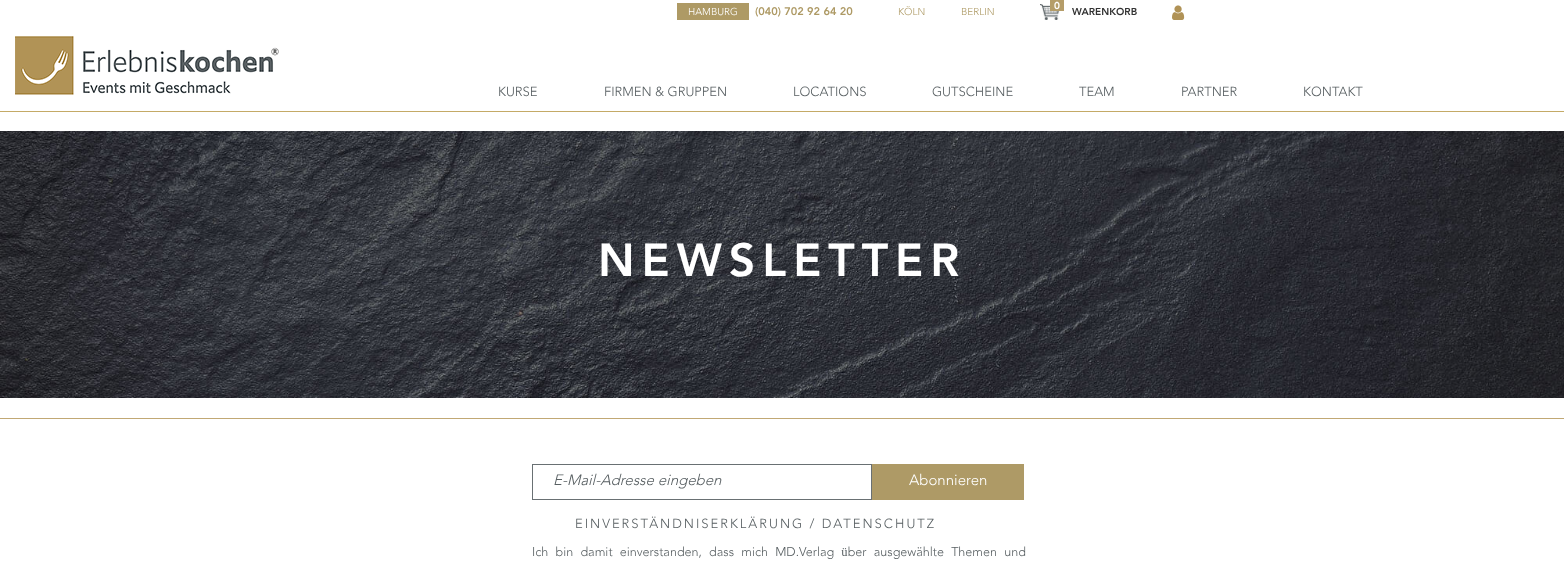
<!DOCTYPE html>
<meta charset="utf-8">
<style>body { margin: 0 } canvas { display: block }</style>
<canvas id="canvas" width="1564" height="567"></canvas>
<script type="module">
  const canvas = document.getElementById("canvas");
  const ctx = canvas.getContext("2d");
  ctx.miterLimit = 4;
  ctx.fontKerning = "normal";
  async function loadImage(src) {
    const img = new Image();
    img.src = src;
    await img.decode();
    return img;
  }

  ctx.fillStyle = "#ffffff";
  ctx.fillRect(0, 0, 1564, 567);
  ctx.fillStyle = "#ae9a65";
  ctx.fillRect(677, 3, 72, 17);
  ctx.font = "300 10px Avenir";
  ctx.fillStyle = "#ffffff";
  ctx.fillText("HAMBURG", 688, 15);
  ctx.font = "900 11px Avenir";
  ctx.fillStyle = "#ae9a65";
  ctx.fillText("(040) 702 92 64 20", 755, 15);
  ctx.font = "300 10px Avenir";
  ctx.fillText("KÖLN", 898, 15);
  ctx.fillText("BERLIN", 961, 15);
  ctx.drawImage(await loadImage("img1.png"), 1040, 4, 20, 16);
  ctx.fillStyle = "#b59d69";
  ctx.fillRect(1050, 0, 14, 11);
  ctx.font = "900 10px Avenir";
  ctx.fillStyle = "#ffffff";
  ctx.fillText("0", 1054, 9);
  ctx.fillStyle = "#333333";
  ctx.fillText("WARENKORB", 1072, 15);
  ctx.drawImage(await loadImage("img2.png"), 1172, 5, 13, 15);
  ctx.fillStyle = "#c4aa66";
  ctx.fillRect(0, 111, 1564, 1);
  ctx.drawImage(await loadImage("img3.png"), 15, 36, 264, 59);
  ctx.font = "300 13px Avenir";
  ctx.fillStyle = "#596063";
  ctx.fillText("KURSE", 498, 96);
  ctx.fillText("FIRMEN & GRUPPEN", 604, 96);
  ctx.fillText("LOCATIONS", 793, 96);
  ctx.fillText("GUTSCHEINE", 932, 96);
  ctx.fillText("TEAM", 1079, 96);
  ctx.fillText("PARTNER", 1181, 96);
  ctx.fillText("KONTAKT", 1303, 96);
  ctx.drawImage(await loadImage("img4.png"), 0, 131, 1564, 267);
  ctx.letterSpacing = "7px";
  ctx.font = "900 46px Avenir";
  ctx.fillStyle = "#ffffff";
  ctx.fillText("NEWSLETTER", 598, 276);
  ctx.fillStyle = "#c1a874";
  ctx.fillRect(0, 418, 1564, 1);
  ctx.strokeStyle = "#697073";
  ctx.strokeRect(532.5, 464.5, 339, 35);
  ctx.letterSpacing = "0px";
  ctx.font = "italic 300 15px Avenir";
  ctx.fillStyle = "#596063";
  ctx.fillText("E-Mail-Adresse eingeben", 553, 485);
  ctx.fillStyle = "#ae9a66";
  ctx.fillRect(872, 464, 152, 36);
  ctx.font = "300 15px Avenir";
  ctx.fillStyle = "#ffffff";
  ctx.fillText("Abonnieren", 909, 485);
  ctx.letterSpacing = "2px";
  ctx.font = "300 13px Avenir";
  ctx.fillStyle = "#596063";
  ctx.fillText("EINVERSTÄNDNISERKLÄRUNG / DATENSCHUTZ", 575, 528);
  ctx.letterSpacing = "0px";
  ctx.wordSpacing = "3.9px";
  ctx.font = "300 12.6px Avenir";
  ctx.fillText("Ich bin damit einverstanden, dass mich MD.Verlag über ausgewählte Themen und", 532, 556);
</script>
